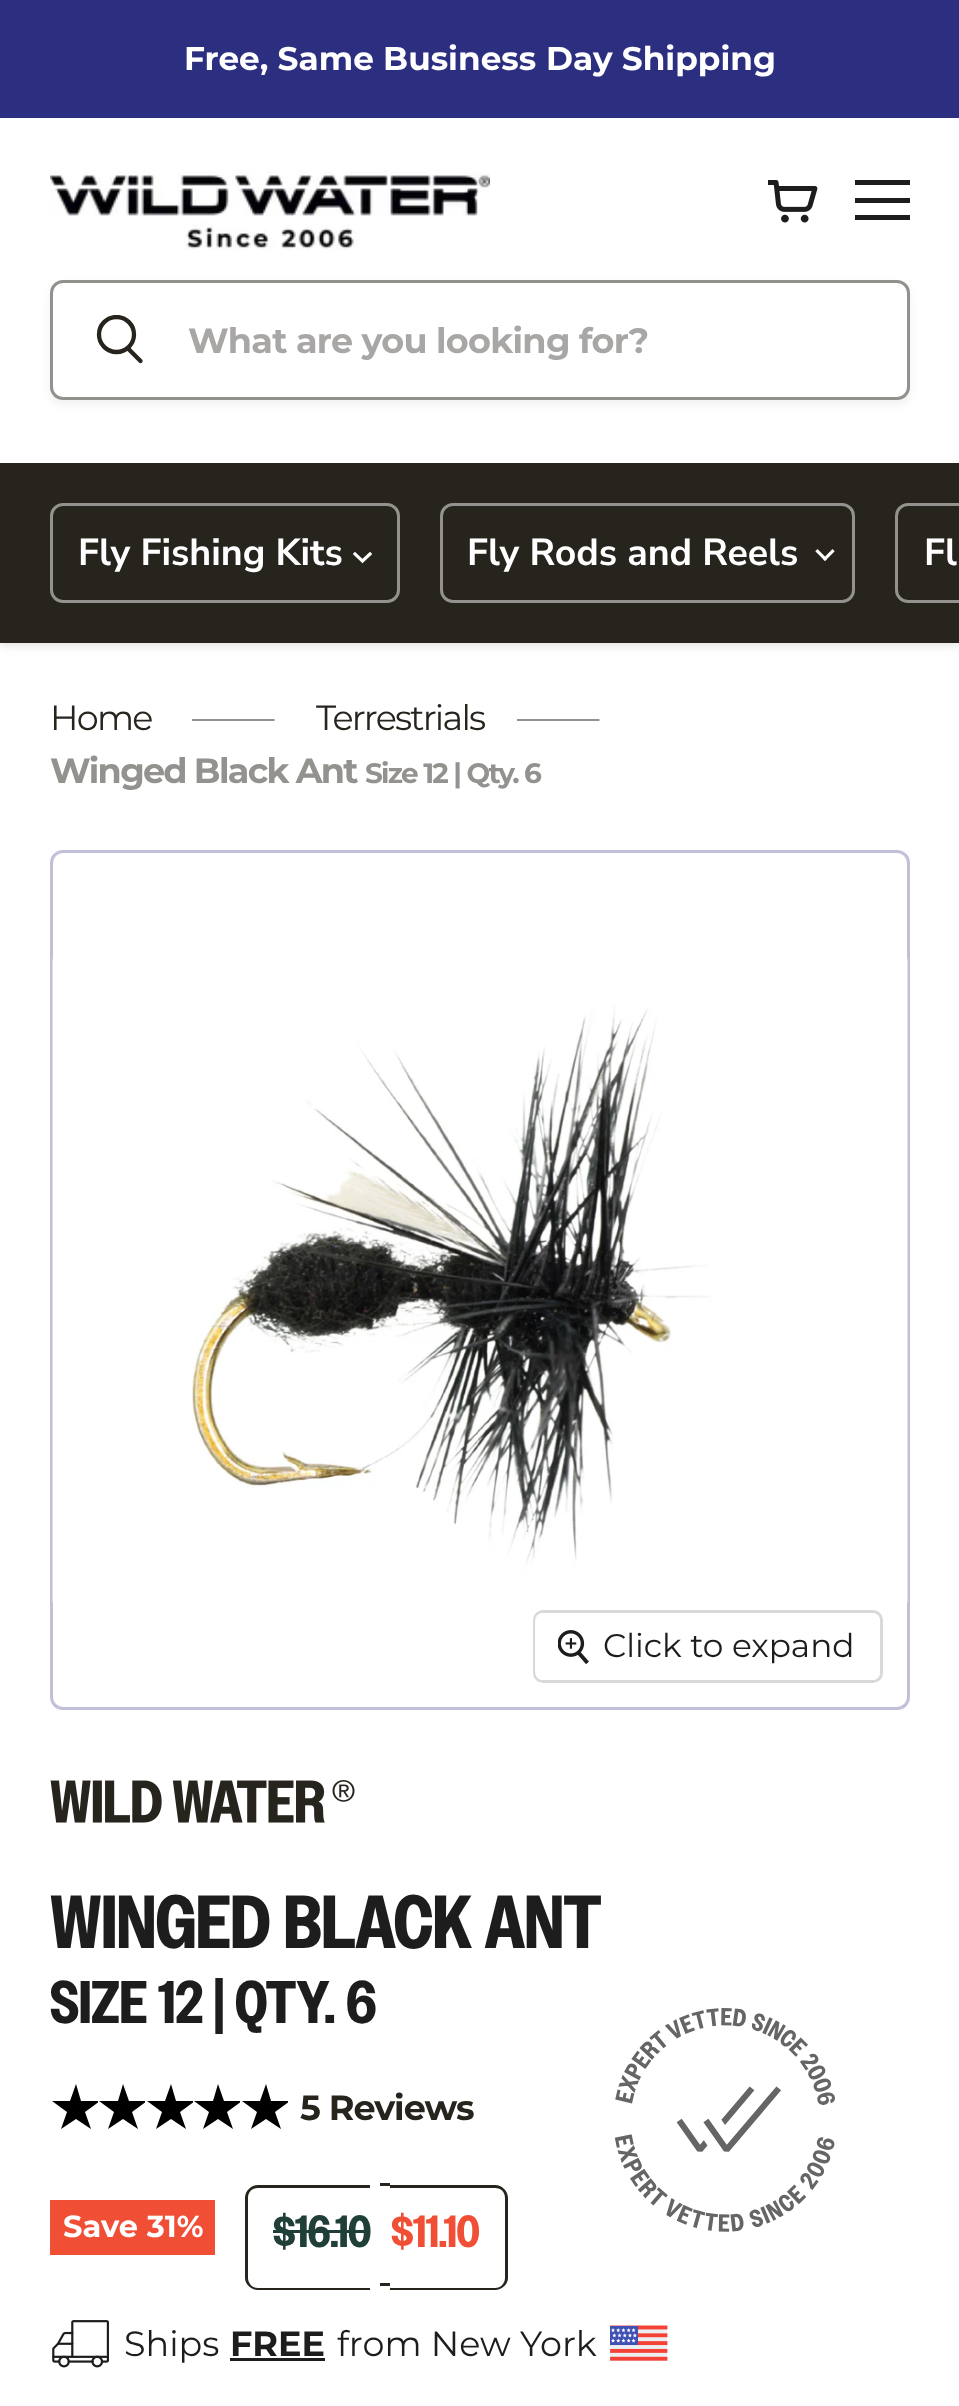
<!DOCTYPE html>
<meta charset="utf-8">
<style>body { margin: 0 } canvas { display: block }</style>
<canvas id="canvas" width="959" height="2406"></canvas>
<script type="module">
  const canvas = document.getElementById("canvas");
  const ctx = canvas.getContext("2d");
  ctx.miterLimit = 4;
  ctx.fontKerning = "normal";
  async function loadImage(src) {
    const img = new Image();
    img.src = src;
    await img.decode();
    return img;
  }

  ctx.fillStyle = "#ffffff";
  ctx.fillRect(0, 0, 959, 2406);
  ctx.fillStyle = "rgba(128, 128, 128, 0.25)";
  ctx.filter = "blur(5px)";
  ctx.beginPath();
  ctx.rect(0, 120, 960, 525);
  ctx.fill();
  ctx.filter = "none";
  ctx.fillStyle = "#2c2e80";
  ctx.fillRect(0, 0, 959, 118);
  ctx.font = "bold 32.75px Montserrat";
  ctx.fillStyle = "#ffffff";
  ctx.fillText("Free, Same Business", 184, 70);
  ctx.fillText("Day Shipping", 546, 70);
  ctx.fillRect(0, 118, 959, 345);
  ctx.drawImage(await loadImage("img1.png"), 768, 180, 50, 43);
  ctx.fillStyle = "#1d1d1d";
  ctx.fillRect(855, 180, 55, 5);
  ctx.fillRect(855, 198, 55, 5);
  ctx.fillRect(855, 215, 55, 5);
  ctx.drawImage(await loadImage("img2.png"), 50, 170, 440, 80);
  ctx.save();
  ctx.beginPath();
  ctx.moveTo(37, 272);
  ctx.lineTo(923, 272);
  ctx.lineTo(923, 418);
  ctx.lineTo(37, 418);
  ctx.closePath();
  ctx.moveTo(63, 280);
  ctx.lineTo(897, 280);
  ctx.bezierCurveTo(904, 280, 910, 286, 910, 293);
  ctx.lineTo(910, 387);
  ctx.bezierCurveTo(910, 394, 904, 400, 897, 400);
  ctx.lineTo(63, 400);
  ctx.bezierCurveTo(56, 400, 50, 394, 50, 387);
  ctx.lineTo(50, 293);
  ctx.bezierCurveTo(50, 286, 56, 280, 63, 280);
  ctx.closePath();
  ctx.clip("evenodd");
  ctx.fillStyle = "rgba(128, 128, 128, 0.11)";
  ctx.filter = "blur(4px)";
  ctx.beginPath();
  ctx.roundRect(50, 285, 860, 120, 13);
  ctx.fill();
  ctx.filter = "none";
  ctx.restore();
  ctx.beginPath();
  ctx.roundRect(51.5, 281.5, 857, 117, 11.5);
  ctx.strokeStyle = "rgba(39, 36, 29, 0.5)";
  ctx.lineWidth = 3;
  ctx.stroke();
  ctx.beginPath();
  ctx.moveTo(140.5, 361);
  ctx.lineTo(128.5, 349);
  ctx.strokeStyle = "#27241d";
  ctx.lineWidth = 4.3;
  ctx.lineCap = "round";
  ctx.stroke();
  ctx.save();
  ctx.beginPath();
  ctx.rect(95, 315, 50, 53);
  ctx.clip();
  ctx.beginPath();
  ctx.arc(116.5, 334.5, 17.5, 0, Math.PI * 2);
  ctx.stroke();
  ctx.restore();
  ctx.letterSpacing = "-0.7px";
  ctx.font = "bold 35px Montserrat";
  ctx.fillStyle = "#a9a7a5";
  ctx.fillText("What are you looking for?", 188, 353);
  ctx.fillStyle = "#27241d";
  ctx.fillRect(0, 463, 959, 180);
  ctx.beginPath();
  ctx.roundRect(51.5, 504.5, 347, 97, 11.5);
  ctx.strokeStyle = "#93928e";
  ctx.lineWidth = 3;
  ctx.stroke();
  ctx.letterSpacing = "0px";
  ctx.font = "bold 37.5px Nunito Sans";
  ctx.fillStyle = "#ffffff";
  ctx.fillText("Fly Fishing Kits", 78, 565);
  ctx.beginPath();
  ctx.moveTo(362.5, 561);
  ctx.lineTo(370, 554);
  ctx.moveTo(362.5, 561);
  ctx.lineTo(355, 554);
  ctx.strokeStyle = "#ffffff";
  ctx.lineWidth = 3.1;
  ctx.lineCap = "square";
  ctx.stroke();
  ctx.beginPath();
  ctx.roundRect(441.5, 504.5, 412, 97, 11.5);
  ctx.strokeStyle = "#93928e";
  ctx.lineWidth = 3;
  ctx.stroke();
  ctx.fillText("Fly Rods and Reels", 467, 565);
  ctx.drawImage(await loadImage("img3.png"), 815, 549, 20, 12);
  ctx.beginPath();
  ctx.roundRect(896.5, 504.5, 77, 97, 11.5);
  ctx.stroke();
  ctx.fillText("Fl", 924, 565);
  ctx.letterSpacing = "-1.75px";
  ctx.font = "35px Montserrat";
  ctx.fillStyle = "#27241d";
  ctx.fillText("Home", 50, 730);
  ctx.beginPath();
  ctx.moveTo(192, 720);
  ctx.lineTo(274.5, 720);
  ctx.strokeStyle = "#27241d";
  ctx.lineWidth = 1.2;
  ctx.lineCap = "butt";
  ctx.stroke();
  ctx.fillText("Terrestrials", 316, 730);
  ctx.beginPath();
  ctx.moveTo(517, 720);
  ctx.lineTo(599.5, 720);
  ctx.stroke();
  ctx.font = "bold 35px Montserrat";
  ctx.fillStyle = "#93928e";
  ctx.fillText("Winged Black Ant", 50, 783);
  ctx.font = "bold 28px Montserrat";
  ctx.fillText("Size 12 | Qty. 6", 365, 783);
  ctx.beginPath();
  ctx.roundRect(51.5, 851.5, 857, 857, 11.5);
  ctx.strokeStyle = "#c0c0d9";
  ctx.lineWidth = 3;
  ctx.stroke();
  ctx.drawImage(await loadImage("img4.png"), 52, 959, 856, 643);
  ctx.beginPath();
  ctx.roundRect(534.5, 1611.5, 347, 70, 8.5);
  ctx.strokeStyle = "#d9d9d9";
  ctx.stroke();
  ctx.fillStyle = "rgba(255, 255, 255, 0.9)";
  ctx.beginPath();
  ctx.roundRect(535, 1613, 345, 67, 8);
  ctx.fill();
  ctx.drawImage(await loadImage("img5.png"), 558, 1630, 31, 35);
  ctx.letterSpacing = "0px";
  ctx.font = "32.75px Montserrat";
  ctx.fillStyle = "#1d1d1d";
  ctx.fillText("Click to expand", 603, 1657);
  ctx.drawImage(await loadImage("img6.png"), 50, 1780, 305, 43);
  ctx.font = "bold 75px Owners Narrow";
  ctx.fillText("WINGED BLACK ANT", 50, 1948);
  ctx.font = "bold 60px Owners Narrow";
  ctx.fillText("SIZE 12 | QTY. 6", 50, 2023);
  ctx.save();
  ctx.beginPath();
  ctx.rect(50, 2083, 48, 47);
  ctx.clip();
  ctx.fillStyle = "#000000";
  ctx.beginPath();
  ctx.moveTo(76, 2084);
  ctx.lineTo(81, 2101);
  ctx.lineTo(100, 2101);
  ctx.lineTo(85, 2112);
  ctx.lineTo(91, 2129);
  ctx.lineTo(76, 2119);
  ctx.lineTo(61, 2129);
  ctx.lineTo(67, 2112);
  ctx.lineTo(52, 2101);
  ctx.lineTo(70, 2101);
  ctx.closePath();
  ctx.fill();
  ctx.restore();
  ctx.save();
  ctx.beginPath();
  ctx.rect(98, 2083, 47, 47);
  ctx.clip();
  ctx.fillStyle = "#000000";
  ctx.beginPath();
  ctx.moveTo(123, 2084);
  ctx.lineTo(129, 2101);
  ctx.lineTo(147, 2101);
  ctx.lineTo(132, 2112);
  ctx.lineTo(138, 2129);
  ctx.lineTo(123, 2119);
  ctx.lineTo(108, 2129);
  ctx.lineTo(114, 2112);
  ctx.lineTo(99, 2101);
  ctx.lineTo(118, 2101);
  ctx.closePath();
  ctx.fill();
  ctx.restore();
  ctx.save();
  ctx.beginPath();
  ctx.rect(145, 2083, 48, 47);
  ctx.clip();
  ctx.fillStyle = "#000000";
  ctx.beginPath();
  ctx.moveTo(171, 2084);
  ctx.lineTo(176, 2101);
  ctx.lineTo(195, 2101);
  ctx.lineTo(180, 2112);
  ctx.lineTo(186, 2129);
  ctx.lineTo(171, 2119);
  ctx.lineTo(156, 2129);
  ctx.lineTo(162, 2112);
  ctx.lineTo(147, 2101);
  ctx.lineTo(165, 2101);
  ctx.closePath();
  ctx.fill();
  ctx.restore();
  ctx.save();
  ctx.beginPath();
  ctx.rect(193, 2083, 47, 47);
  ctx.clip();
  ctx.fillStyle = "#000000";
  ctx.beginPath();
  ctx.moveTo(218, 2084);
  ctx.lineTo(224, 2101);
  ctx.lineTo(242, 2101);
  ctx.lineTo(227, 2112);
  ctx.lineTo(233, 2129);
  ctx.lineTo(218, 2119);
  ctx.lineTo(203, 2129);
  ctx.lineTo(209, 2112);
  ctx.lineTo(194, 2101);
  ctx.lineTo(213, 2101);
  ctx.closePath();
  ctx.fill();
  ctx.restore();
  ctx.save();
  ctx.beginPath();
  ctx.rect(240, 2083, 48, 47);
  ctx.clip();
  ctx.fillStyle = "#000000";
  ctx.beginPath();
  ctx.moveTo(266, 2084);
  ctx.lineTo(271, 2101);
  ctx.lineTo(290, 2101);
  ctx.lineTo(275, 2112);
  ctx.lineTo(281, 2129);
  ctx.lineTo(266, 2119);
  ctx.lineTo(251, 2129);
  ctx.lineTo(257, 2112);
  ctx.lineTo(242, 2101);
  ctx.lineTo(260, 2101);
  ctx.closePath();
  ctx.fill();
  ctx.restore();
  ctx.letterSpacing = "-1px";
  ctx.font = "bold 35px Montserrat";
  ctx.fillStyle = "#27241d";
  ctx.fillText("5 Reviews", 300, 2120);
  ctx.fillStyle = "#f04f36";
  ctx.fillRect(50, 2200, 165, 55);
  ctx.letterSpacing = "0px";
  ctx.font = "bold 30.5px Montserrat";
  ctx.fillStyle = "#ffffff";
  ctx.fillText("Save 31%", 63, 2237);
  ctx.fillStyle = "#27241d";
  ctx.beginPath();
  ctx.moveTo(258, 2185);
  ctx.lineTo(370, 2185);
  ctx.lineTo(370, 2290);
  ctx.lineTo(258, 2290);
  ctx.bezierCurveTo(251, 2290, 245, 2284, 245, 2278);
  ctx.lineTo(245, 2198);
  ctx.bezierCurveTo(245, 2191, 251, 2185, 258, 2185);
  ctx.closePath();
  ctx.moveTo(258, 2188);
  ctx.lineTo(370, 2188);
  ctx.lineTo(370, 2288);
  ctx.lineTo(258, 2288);
  ctx.bezierCurveTo(252, 2288, 248, 2283, 248, 2278);
  ctx.lineTo(248, 2198);
  ctx.bezierCurveTo(248, 2192, 252, 2188, 258, 2188);
  ctx.closePath();
  ctx.fill("evenodd");
  ctx.fillRect(380, 2183, 10, 3);
  ctx.fillRect(380, 2283, 10, 3);
  ctx.beginPath();
  ctx.moveTo(390, 2185);
  ctx.lineTo(495, 2185);
  ctx.bezierCurveTo(502, 2185, 508, 2191, 508, 2198);
  ctx.lineTo(508, 2278);
  ctx.bezierCurveTo(508, 2284, 502, 2290, 495, 2290);
  ctx.lineTo(390, 2290);
  ctx.closePath();
  ctx.moveTo(390, 2188);
  ctx.lineTo(495, 2188);
  ctx.bezierCurveTo(501, 2188, 505, 2192, 505, 2198);
  ctx.lineTo(505, 2278);
  ctx.bezierCurveTo(505, 2283, 501, 2288, 495, 2288);
  ctx.lineTo(390, 2288);
  ctx.closePath();
  ctx.fill("evenodd");
  ctx.font = "bold 45px Owners Narrow";
  ctx.fillStyle = "#203f38";
  ctx.fillText("$16.10", 273, 2247);
  ctx.fillRect(273, 2230, 97, 3);
  ctx.fillStyle = "#f04f36";
  ctx.fillText("$11.10", 391, 2247);
  ctx.drawImage(await loadImage("img7.png"), 614, 2008, 221, 224);
  ctx.drawImage(await loadImage("img8.png"), 52, 2320, 57, 48);
  ctx.font = "35px Montserrat";
  ctx.fillStyle = "#1d1d1d";
  ctx.fillText("Ships", 124, 2356);
  ctx.font = "bold 35px Montserrat";
  ctx.fillText("FREE", 230, 2356);
  ctx.fillRect(230, 2358, 95, 3);
  ctx.font = "35px Montserrat";
  ctx.fillText("from New York", 337, 2356);
  ctx.drawImage(await loadImage("img9.png"), 610, 2325, 58, 36);
</script>
